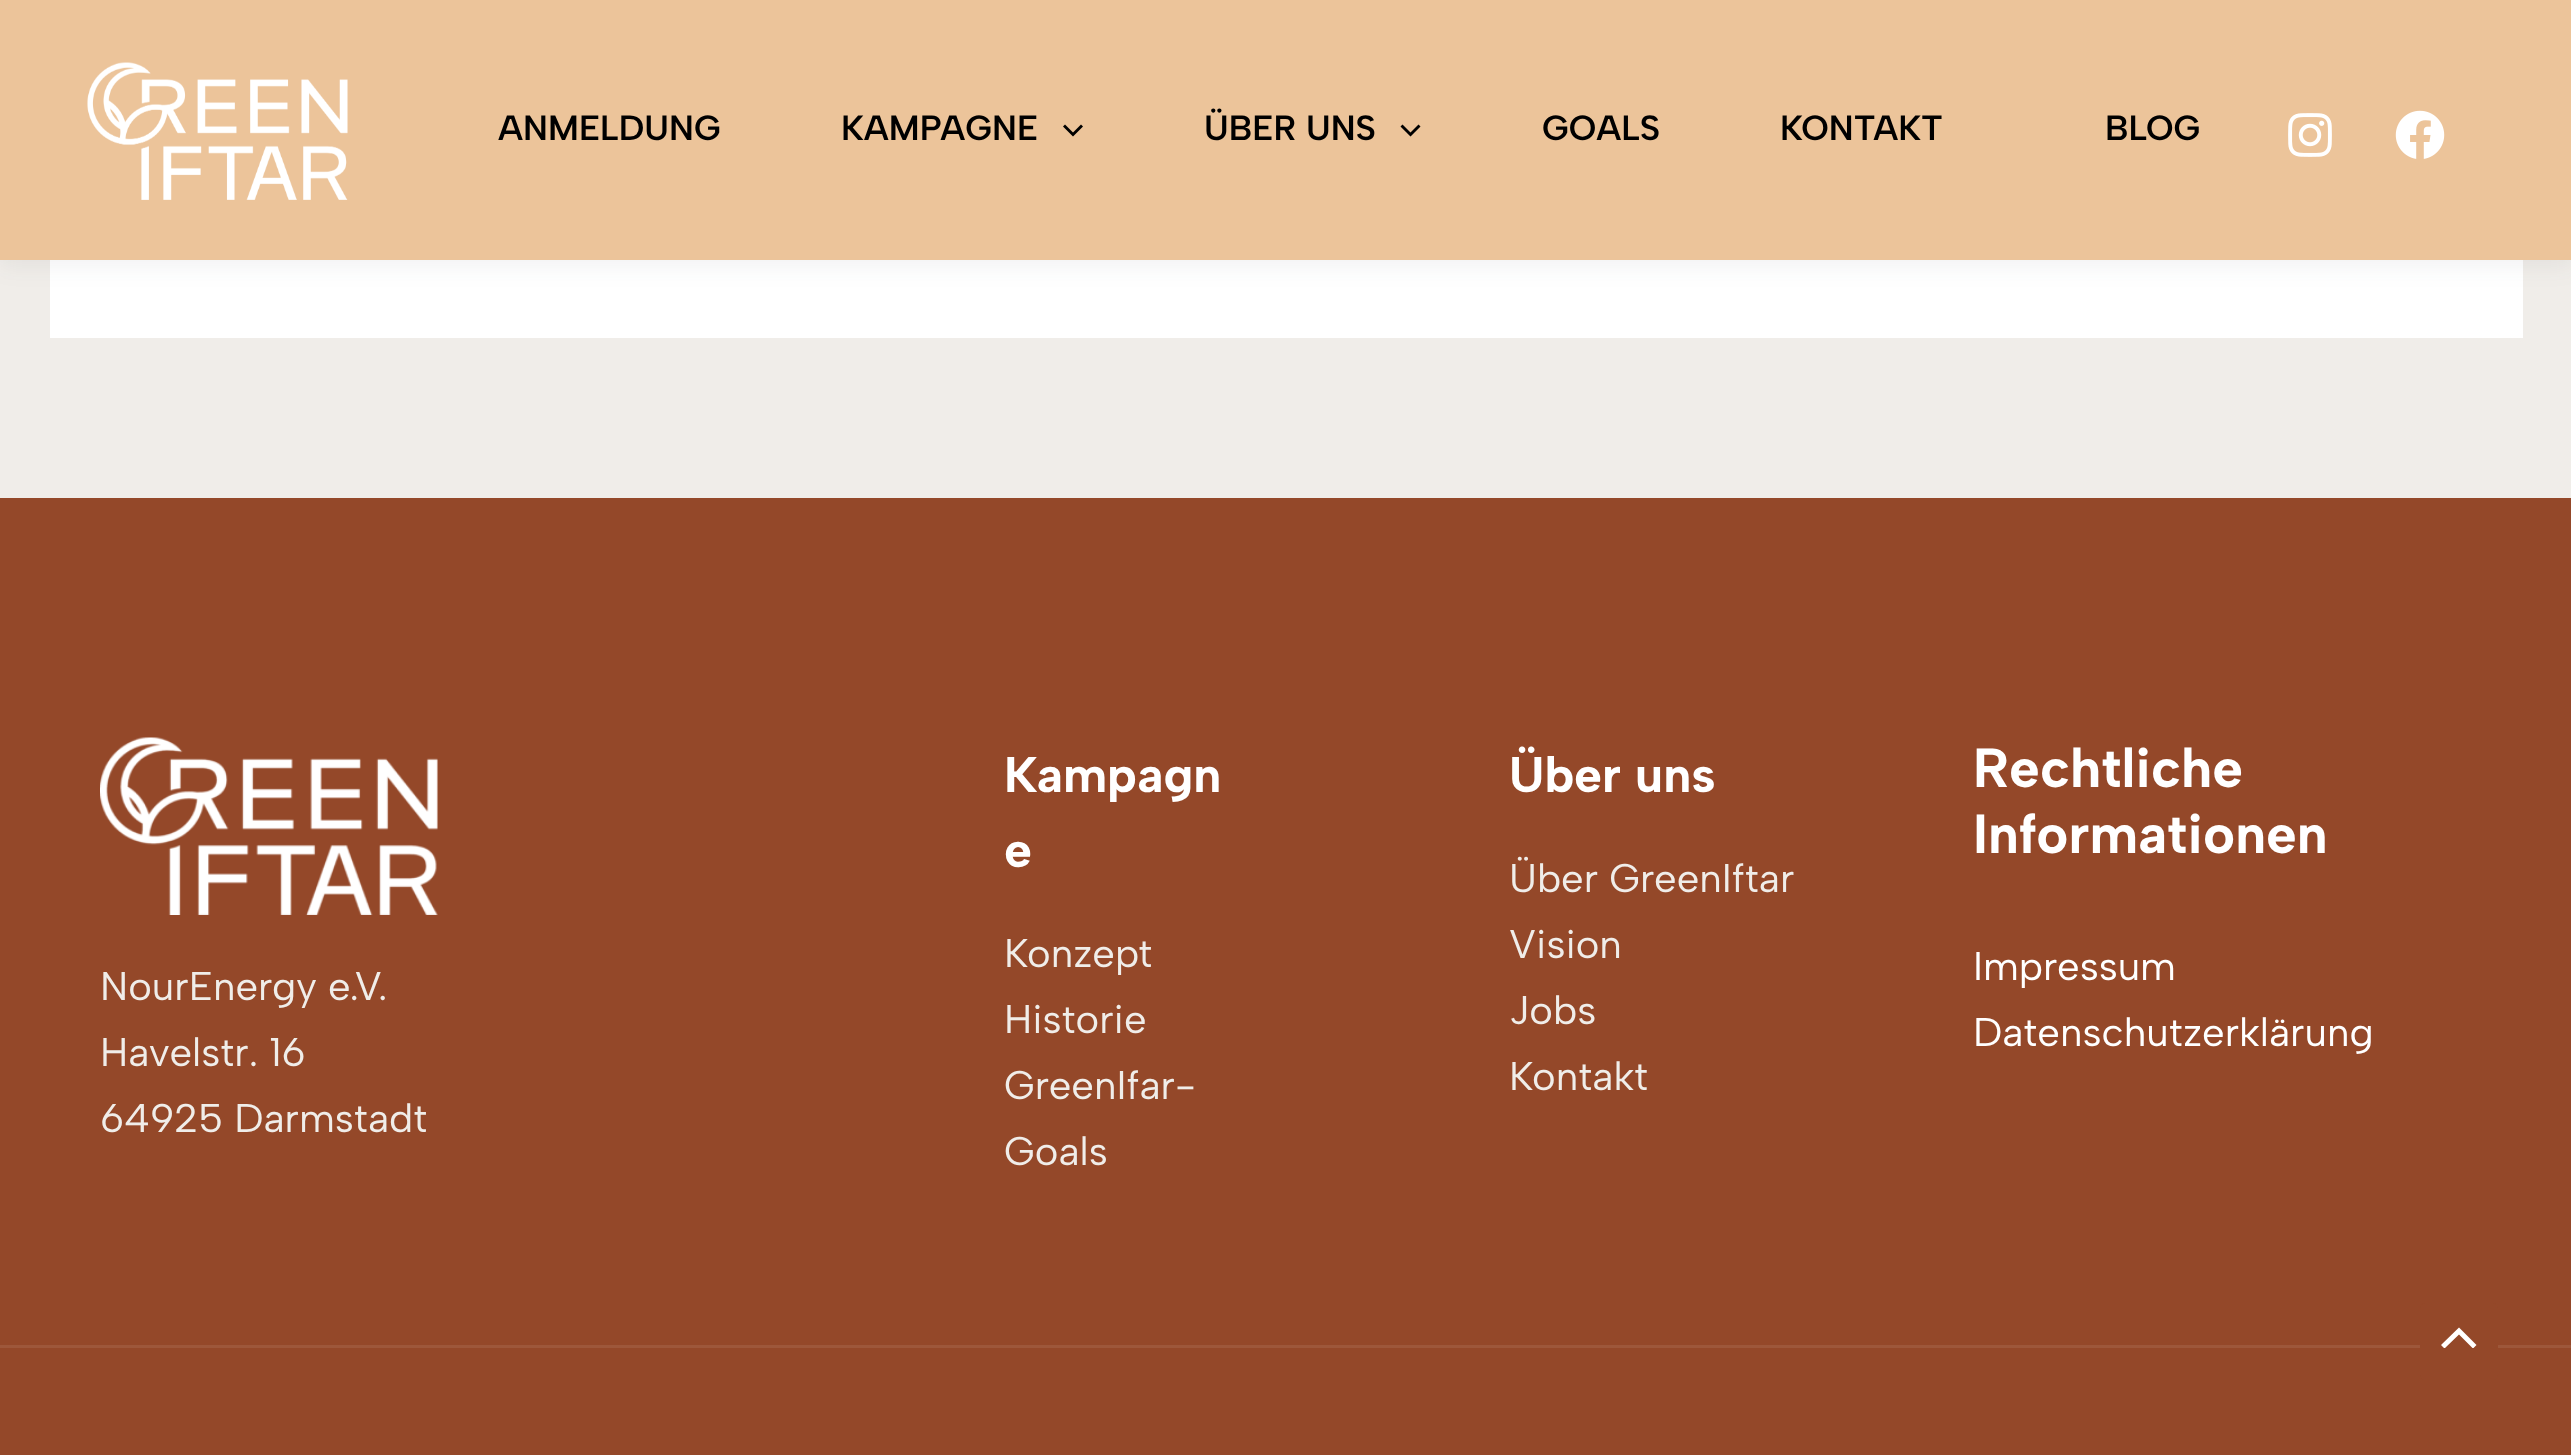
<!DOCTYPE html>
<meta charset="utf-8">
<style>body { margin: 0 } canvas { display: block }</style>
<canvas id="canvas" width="2571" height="1455"></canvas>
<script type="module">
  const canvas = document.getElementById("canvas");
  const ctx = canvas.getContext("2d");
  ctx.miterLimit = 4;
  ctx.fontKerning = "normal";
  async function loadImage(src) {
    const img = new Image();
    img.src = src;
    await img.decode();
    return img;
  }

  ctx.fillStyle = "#f0ede9";
  ctx.fillRect(0, 0, 2571, 1455);
  ctx.fillStyle = "#ffffff";
  ctx.fillRect(50, 260, 2473, 78);
  ctx.fillStyle = "rgba(36, 50, 66, 0.07)";
  ctx.filter = "blur(12.5px)";
  ctx.beginPath();
  ctx.rect(0, 5, 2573, 260);
  ctx.fill();
  ctx.filter = "none";
  ctx.fillStyle = "#ecc49a";
  ctx.fillRect(0, 0, 2571, 260);
  ctx.drawImage(await loadImage("img1.png"), 87, 62, 261, 138);
  ctx.font = "600 35px Albert Sans";
  ctx.fillStyle = "#000000";
  ctx.fillText("ANMELDUNG", 498, 140);
  ctx.fillText("KAMPAGNE", 841, 140);
  ctx.beginPath();
  ctx.moveTo(1063, 126.5);
  ctx.lineTo(1073, 136.5);
  ctx.lineTo(1083, 126.5);
  ctx.lineTo(1081, 124.5);
  ctx.lineTo(1073, 132.5);
  ctx.lineTo(1065, 124.5);
  ctx.closePath();
  ctx.fill();
  ctx.fillText("ÜBER UNS", 1204, 140);
  ctx.beginPath();
  ctx.moveTo(1400.5, 126.5);
  ctx.lineTo(1410.5, 136.5);
  ctx.lineTo(1420.5, 126.5);
  ctx.lineTo(1418.5, 124.5);
  ctx.lineTo(1410.5, 132.5);
  ctx.lineTo(1402.5, 124.5);
  ctx.closePath();
  ctx.fill();
  ctx.fillText("GOALS", 1542, 140);
  ctx.fillText("KONTAKT", 1780, 140);
  ctx.fillText("BLOG", 2105, 140);
  ctx.drawImage(await loadImage("img2.png"), 2288, 113, 44, 44);
  ctx.drawImage(await loadImage("img3.png"), 2395, 110, 50, 49);
  ctx.fillStyle = "#944829";
  ctx.fillRect(0, 498, 2571, 957);
  ctx.drawImage(await loadImage("img4.png"), 100, 737, 338, 178);
  ctx.font = "40px Albert Sans";
  ctx.fillStyle = "#f0ede9";
  ctx.fillText("NourEnergy e.V.", 100, 1000);
  ctx.fillText("Havelstr. 16", 100, 1066);
  ctx.fillText("64925 Darmstadt", 100, 1132);
  ctx.font = "bold 50px Albert Sans";
  ctx.fillStyle = "#ffffff";
  ctx.fillText("Kampagn", 1004, 792);
  ctx.fillText("e", 1004, 867);
  ctx.font = "40px Albert Sans";
  ctx.fillStyle = "#f0ede9";
  ctx.fillText("Konzept", 1004, 967);
  ctx.fillText("Historie", 1004, 1033);
  ctx.fillText("GreenIfar-", 1004, 1099);
  ctx.fillText("Goals", 1004, 1165);
  ctx.font = "bold 50px Albert Sans";
  ctx.fillStyle = "#ffffff";
  ctx.fillText("Über uns", 1509, 792);
  ctx.font = "40px Albert Sans";
  ctx.fillStyle = "#f0ede9";
  ctx.fillText("Über GreenIftar", 1509, 892);
  ctx.fillText("Vision", 1509, 958);
  ctx.fillText("Jobs", 1509, 1024);
  ctx.fillText("Kontakt", 1509, 1090);
  ctx.font = "bold 55px Albert Sans";
  ctx.fillStyle = "#ffffff";
  ctx.fillText("Rechtliche", 1973, 787);
  ctx.fillText("Informationen", 1973, 853);
  ctx.font = "40px Albert Sans";
  ctx.fillText("Impressum", 1973, 980);
  ctx.fillText("Datenschutzerklärung", 1973, 1046);
  ctx.fillStyle = "#9d573a";
  ctx.fillRect(0, 1345, 2571, 3);
  ctx.fillStyle = "#944829";
  ctx.beginPath();
  ctx.roundRect(2420, 1303, 78, 77, 5);
  ctx.fill();
  ctx.save();
  ctx.beginPath();
  ctx.rect(2428, 1325, 60, 23);
  ctx.clip();
  ctx.fillStyle = "#ffffff";
  ctx.beginPath();
  ctx.moveTo(2476.5, 1345);
  ctx.lineTo(2459, 1327.5);
  ctx.lineTo(2441, 1345);
  ctx.lineTo(2444.5, 1348.5);
  ctx.lineTo(2459, 1334.5);
  ctx.lineTo(2473, 1348.5);
  ctx.closePath();
  ctx.fill();
  ctx.restore();
</script>
